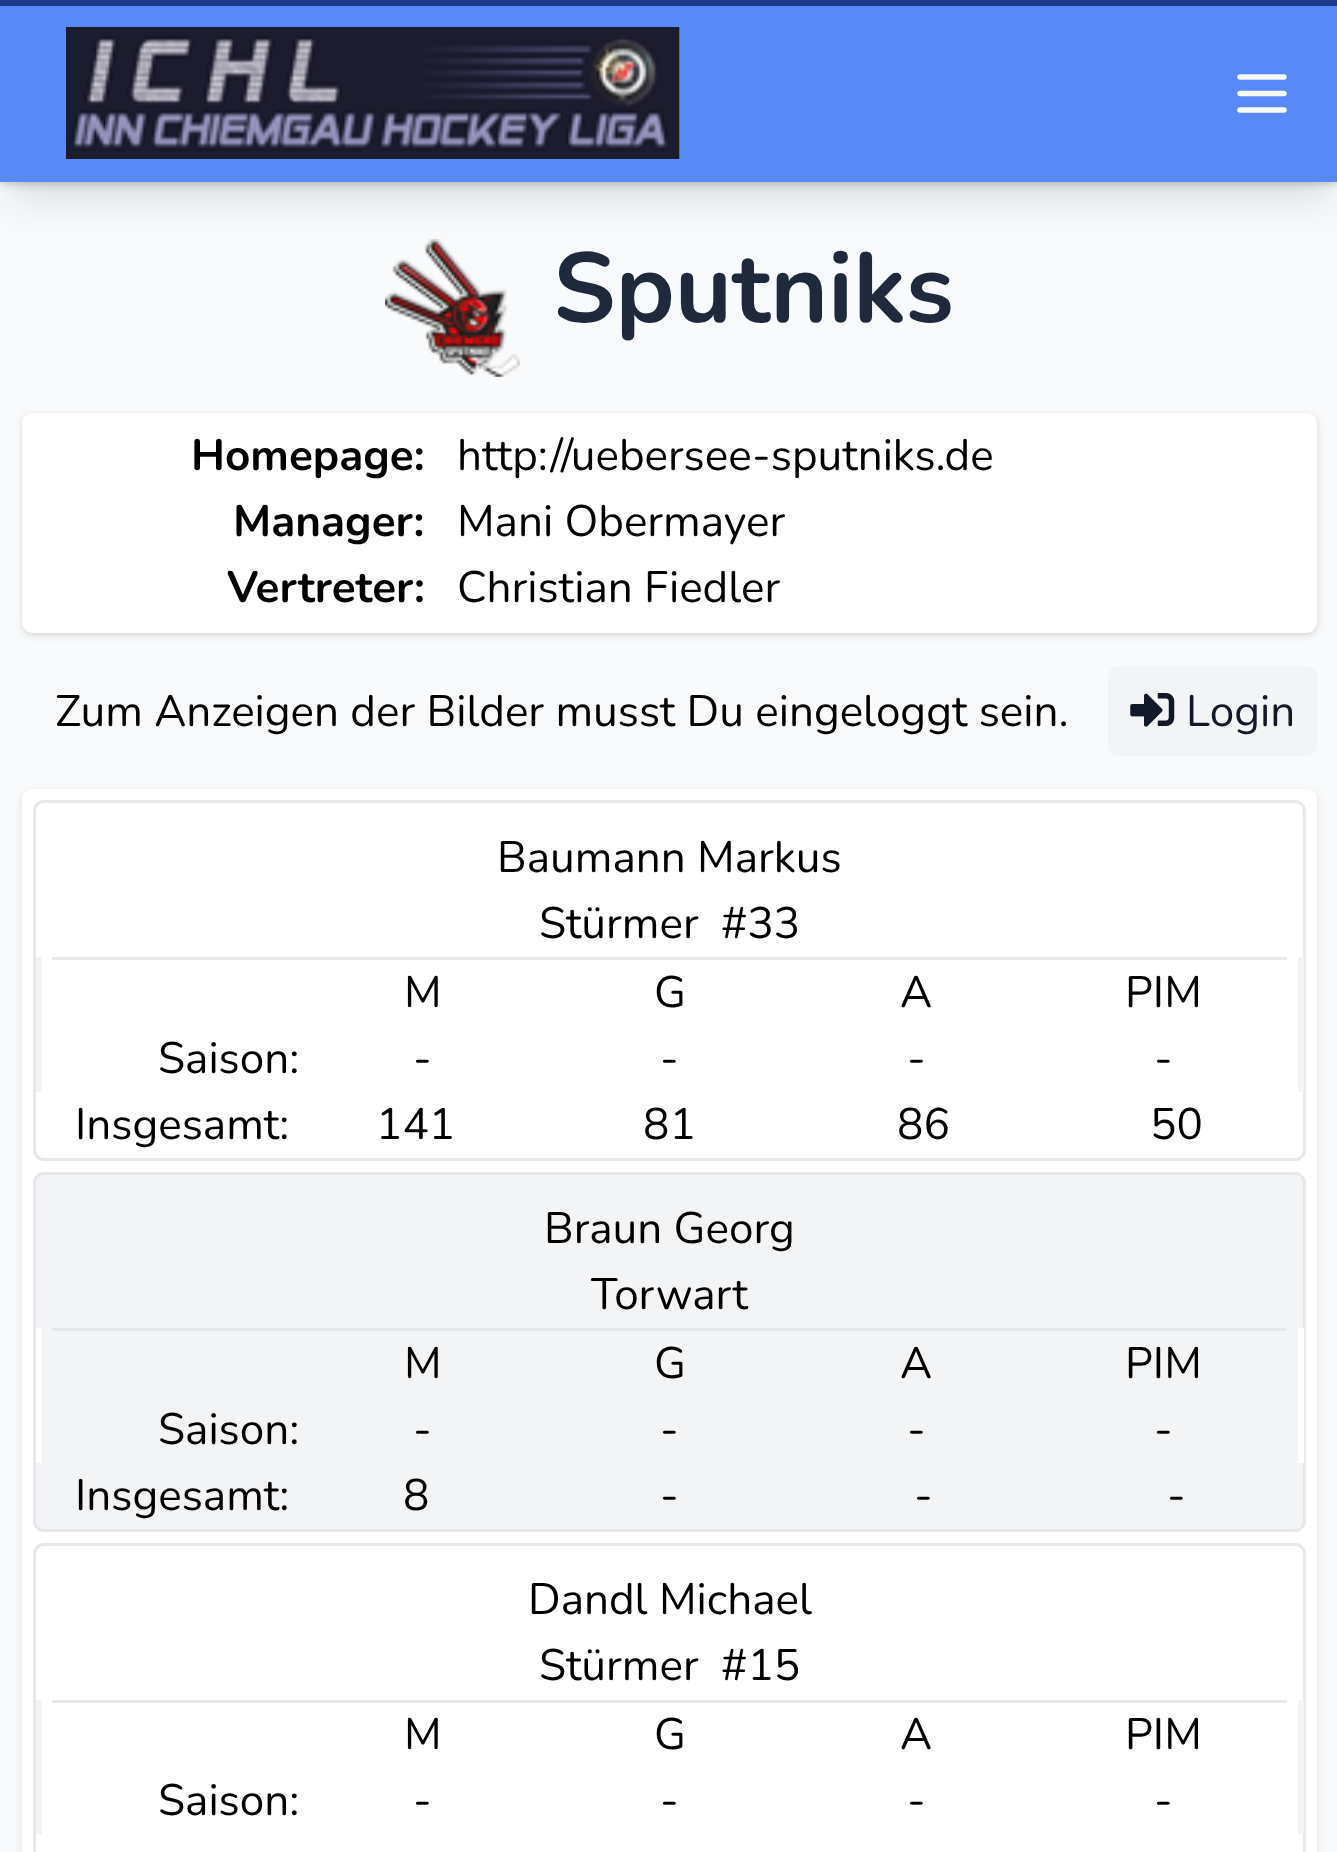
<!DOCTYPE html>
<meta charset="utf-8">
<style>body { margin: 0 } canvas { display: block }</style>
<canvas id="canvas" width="1337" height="1852"></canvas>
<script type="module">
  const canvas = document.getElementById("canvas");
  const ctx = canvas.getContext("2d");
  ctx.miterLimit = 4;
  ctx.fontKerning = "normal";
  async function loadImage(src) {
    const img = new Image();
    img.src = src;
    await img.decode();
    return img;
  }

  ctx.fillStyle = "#f8fafc";
  ctx.fillRect(0, 0, 1337, 1852);
  ctx.fillStyle = "rgba(0, 0, 0, 0.1)";
  ctx.filter = "blur(3px)";
  ctx.beginPath();
  ctx.rect(3, 6, 1334, 176);
  ctx.fill();
  ctx.filter = "none";
  ctx.filter = "blur(4px)";
  ctx.beginPath();
  ctx.rect(0, 3, 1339, 181);
  ctx.fill();
  ctx.filter = "none";
  ctx.fillStyle = "#1e3a8a";
  ctx.fillRect(0, 0, 1337, 6);
  ctx.fillStyle = "rgba(0, 0, 0, 0.1)";
  ctx.filter = "blur(8px)";
  ctx.beginPath();
  ctx.rect(11, 28, 1317, 154);
  ctx.fill();
  ctx.filter = "none";
  ctx.drawImage(await loadImage("img2.png"), 385, 239, 135, 138);
  ctx.filter = "blur(20.5px)";
  ctx.beginPath();
  ctx.rect(8, 41, 1323, 160);
  ctx.fill();
  ctx.filter = "none";
  ctx.fillStyle = "#5989f8";
  ctx.fillRect(0, 6, 1337, 176);
  ctx.drawImage(await loadImage("img1.png"), 66, 27, 614, 132);
  ctx.beginPath();
  ctx.moveTo(1240, 77);
  ctx.lineTo(1284, 77);
  ctx.moveTo(1240, 93.5);
  ctx.lineTo(1284, 93.5);
  ctx.moveTo(1240, 110);
  ctx.lineTo(1284, 110);
  ctx.strokeStyle = "#f9fafb";
  ctx.lineWidth = 5.5;
  ctx.lineCap = "round";
  ctx.lineJoin = "round";
  ctx.stroke();
  ctx.font = "bold 99px Nunito";
  ctx.fillStyle = "#1e293b";
  ctx.fillText("Sputniks", 553, 322);
  ctx.fillStyle = "rgba(0, 0, 0, 0.1)";
  ctx.filter = "blur(3px)";
  ctx.beginPath();
  ctx.roundRect(25, 418, 1290, 215, 8);
  ctx.fill();
  ctx.filter = "none";
  ctx.filter = "blur(4px)";
  ctx.beginPath();
  ctx.roundRect(22, 415, 1295, 220, 11);
  ctx.fill();
  ctx.filter = "none";
  ctx.fillStyle = "#ffffff";
  ctx.beginPath();
  ctx.roundRect(22, 413, 1295, 220, 11);
  ctx.fill();
  ctx.font = "bold 44px Nunito";
  ctx.fillStyle = "#000000";
  ctx.fillText("Homepage:", 191, 470);
  ctx.font = "44px Nunito";
  ctx.fillText("http://uebersee-sputniks.de", 457, 470);
  ctx.font = "bold 44px Nunito";
  ctx.fillText("Manager:", 233, 536);
  ctx.font = "44px Nunito";
  ctx.fillText("Mani Obermayer", 457, 536);
  ctx.font = "bold 44px Nunito";
  ctx.fillText("Vertreter:", 227, 602);
  ctx.font = "44px Nunito";
  ctx.fillText("Christian Fiedler", 457, 602);
  ctx.fillText("Zum Anzeigen der Bilder musst Du eingeloggt sein.", 55, 726);
  ctx.fillStyle = "#f3f4f6";
  ctx.beginPath();
  ctx.roundRect(1108, 666, 209, 90, 11);
  ctx.fill();
  ctx.drawImage(await loadImage("img3.png"), 1130, 693, 45, 34);
  ctx.fillStyle = "#111827";
  ctx.fillText("Login", 1186, 726);
  ctx.fillStyle = "rgba(0, 0, 0, 0.1)";
  ctx.filter = "blur(4px)";
  ctx.beginPath();
  ctx.roundRect(22, 792, 1295, 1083, 11);
  ctx.fill();
  ctx.filter = "none";
  ctx.fillStyle = "#ffffff";
  ctx.beginPath();
  ctx.roundRect(22, 789, 1295, 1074, 11);
  ctx.fill();
  ctx.beginPath();
  ctx.roundRect(34.5, 801.5, 1270, 358, 9.5);
  ctx.strokeStyle = "#e5e7eb";
  ctx.lineWidth = 3;
  ctx.lineJoin = "miter";
  ctx.stroke();
  ctx.fillStyle = "#000000";
  ctx.fillText("Baumann Markus", 497, 872);
  ctx.fillText("Stürmer", 539, 938);
  ctx.fillText("#33", 721, 938);
  ctx.fillStyle = "#f3f4f6";
  ctx.fillRect(1298, 957, 6, 135);
  ctx.fillRect(36, 957, 6, 135);
  ctx.fillStyle = "#e5e7eb";
  ctx.fillRect(52, 957, 1235, 3);
  ctx.fillStyle = "#000000";
  ctx.fillText("M", 404, 1007);
  ctx.fillText("G", 654, 1007);
  ctx.fillText("A", 900, 1007);
  ctx.fillText("PIM", 1125, 1007);
  ctx.fillText("Saison:", 158, 1073);
  ctx.fillText("-", 413, 1073);
  ctx.fillText("-", 660, 1073);
  ctx.fillText("-", 907, 1073);
  ctx.fillText("-", 1154, 1073);
  ctx.fillText("Insgesamt:", 75, 1139);
  ctx.fillText("141", 376, 1139);
  ctx.fillText("81", 643, 1139);
  ctx.fillText("86", 897, 1139);
  ctx.fillText("50", 1150, 1139);
  ctx.fillStyle = "#f3f4f6";
  ctx.beginPath();
  ctx.roundRect(34.5, 1173.5, 1270, 357, 9.5);
  ctx.fill();
  ctx.stroke();
  ctx.fillStyle = "#000000";
  ctx.fillText("Braun Georg", 544, 1243);
  ctx.fillText("Torwart", 591, 1309);
  ctx.fillStyle = "#ffffff";
  ctx.fillRect(1298, 1328, 6, 135);
  ctx.fillRect(36, 1328, 6, 135);
  ctx.fillStyle = "#e5e7eb";
  ctx.fillRect(52, 1328, 1235, 3);
  ctx.fillStyle = "#000000";
  ctx.fillText("M", 404, 1378);
  ctx.fillText("G", 654, 1378);
  ctx.fillText("A", 900, 1378);
  ctx.fillText("PIM", 1125, 1378);
  ctx.fillText("Saison:", 158, 1444);
  ctx.fillText("-", 413, 1444);
  ctx.fillText("-", 660, 1444);
  ctx.fillText("-", 907, 1444);
  ctx.fillText("-", 1154, 1444);
  ctx.fillText("Insgesamt:", 75, 1510);
  ctx.fillText("8", 403, 1510);
  ctx.fillText("-", 660, 1510);
  ctx.fillText("-", 914, 1510);
  ctx.fillText("-", 1167, 1510);
  ctx.beginPath();
  ctx.roundRect(34.5, 1544.5, 1270, 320, 9.5);
  ctx.stroke();
  ctx.fillText("Dandl Michael", 528, 1614);
  ctx.fillText("Stürmer", 539, 1680);
  ctx.fillText("#15", 721, 1680);
  ctx.fillStyle = "#f3f4f6";
  ctx.fillRect(1298, 1700, 6, 134);
  ctx.fillRect(36, 1700, 6, 134);
  ctx.fillStyle = "#e5e7eb";
  ctx.fillRect(52, 1700, 1235, 3);
  ctx.fillStyle = "#000000";
  ctx.fillText("M", 404, 1749);
  ctx.fillText("G", 654, 1749);
  ctx.fillText("A", 900, 1749);
  ctx.fillText("PIM", 1125, 1749);
  ctx.fillText("Saison:", 158, 1815);
  ctx.fillText("-", 413, 1815);
  ctx.fillText("-", 660, 1815);
  ctx.fillText("-", 907, 1815);
  ctx.fillText("-", 1154, 1815);
</script>
